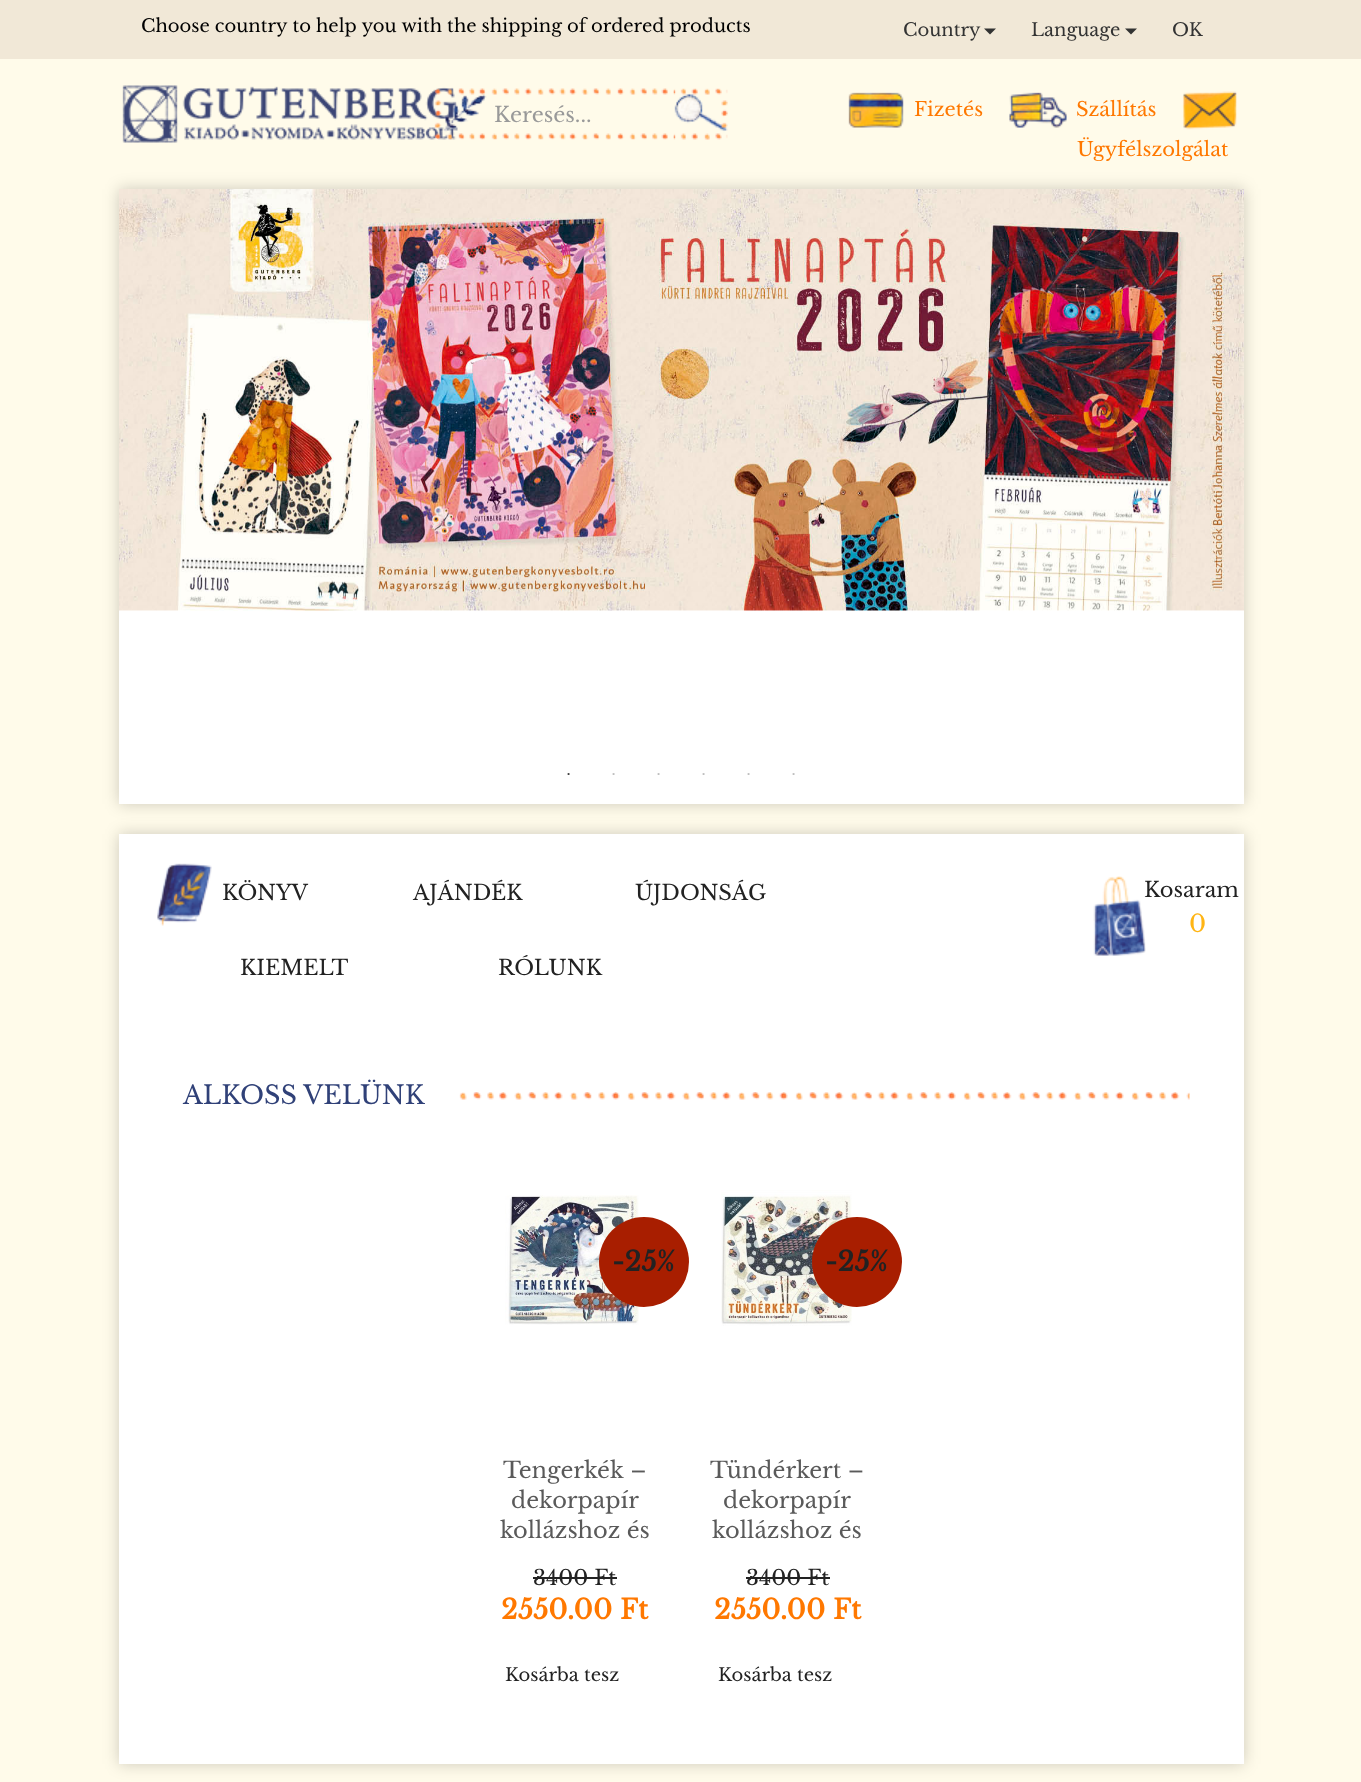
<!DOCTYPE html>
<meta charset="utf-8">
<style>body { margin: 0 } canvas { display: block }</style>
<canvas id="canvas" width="1361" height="1782"></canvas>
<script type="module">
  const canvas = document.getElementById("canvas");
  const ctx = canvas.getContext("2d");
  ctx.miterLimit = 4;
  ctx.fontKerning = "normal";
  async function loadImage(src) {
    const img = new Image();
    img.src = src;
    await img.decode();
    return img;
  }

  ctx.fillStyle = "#fffbea";
  ctx.fillRect(0, 0, 1361, 1782);
  ctx.fillStyle = "#f1e8d7";
  ctx.fillRect(0, 0, 1361, 59);
  ctx.wordSpacing = "-0.25px";
  ctx.font = "18px Libre Baskerville";
  ctx.fillStyle = "#000000";
  ctx.fillText("Choose country to help you with the shipping of ordered products", 141, 32);
  ctx.wordSpacing = "0px";
  ctx.fillStyle = "#333333";
  ctx.fillText("Country", 903, 36);
  ctx.beginPath();
  ctx.moveTo(984, 28.5);
  ctx.lineTo(996, 28.5);
  ctx.lineTo(990, 34.5);
  ctx.closePath();
  ctx.fill();
  ctx.fillText("Language", 1031, 36);
  ctx.beginPath();
  ctx.moveTo(1125, 28.5);
  ctx.lineTo(1137, 28.5);
  ctx.lineTo(1131, 34.5);
  ctx.closePath();
  ctx.fill();
  ctx.fillText("OK", 1172, 36);
  ctx.drawImage(await loadImage("img1.png"), 122, 85, 336, 58);
  ctx.drawImage(await loadImage("img2.png"), 434, 88, 241, 52);
  ctx.font = "21px Libre Baskerville";
  ctx.fillStyle = "#999999";
  ctx.fillText("Keresés...", 494, 122);
  ctx.drawImage(await loadImage("img3.png"), 673, 88, 55, 52);
  ctx.drawImage(await loadImage("img4.png"), 848, 92, 56, 36);
  ctx.font = "19.5px Libre Baskerville";
  ctx.fillStyle = "#ff7800";
  ctx.fillText("Fizetés", 914, 116);
  ctx.drawImage(await loadImage("img5.png"), 1009, 92, 58, 36);
  ctx.fillText("Szállítás", 1076, 116);
  ctx.drawImage(await loadImage("img6.png"), 1182, 91, 55, 39);
  ctx.fillText("Ügyfélszolgálat", 1077, 156);
  ctx.fillStyle = "rgba(0, 0, 0, 0.2)";
  ctx.filter = "blur(8px)";
  ctx.beginPath();
  ctx.rect(119, 189, 1125, 615);
  ctx.fill();
  ctx.filter = "none";
  ctx.fillStyle = "#ffffff";
  ctx.fillRect(119, 610, 1125, 194);
  ctx.drawImage(await loadImage("img7.png"), 119, 189, 1125, 422);
  ctx.font = "9px Liberation Serif";
  ctx.fillStyle = "#404040";
  ctx.fillText("•", 567, 777);
  ctx.fillStyle = "#bfbfbf";
  ctx.fillText("•", 612, 777);
  ctx.fillText("•", 657, 777);
  ctx.fillText("•", 702, 777);
  ctx.fillText("•", 747, 777);
  ctx.fillText("•", 792, 777);
  ctx.fillStyle = "rgba(0, 0, 0, 0.2)";
  ctx.filter = "blur(8px)";
  ctx.beginPath();
  ctx.rect(119, 834, 1125, 930);
  ctx.fill();
  ctx.filter = "none";
  ctx.fillStyle = "#ffffff";
  ctx.fillRect(119, 834, 1125, 930);
  ctx.drawImage(await loadImage("img8.png"), 157, 863, 55, 63);
  ctx.font = "21px Libre Baskerville";
  ctx.fillStyle = "#222222";
  ctx.fillText("KÖNYV", 222, 900);
  ctx.fillText("AJÁNDÉK", 413, 900);
  ctx.fillText("ÚJDONSÁG", 635, 900);
  ctx.fillText("KIEMELT", 240, 975);
  ctx.fillText("RÓLUNK", 498, 975);
  ctx.fillText("Kosaram", 1144, 897);
  ctx.drawImage(await loadImage("img9.png"), 1093, 876, 53, 80);
  ctx.font = "24px Libre Baskerville";
  ctx.fillStyle = "#ffb514";
  ctx.fillText("0", 1189, 932);
  ctx.drawImage(await loadImage("img10.png"), 459, 1092, 731, 8);
  ctx.wordSpacing = "-1px";
  ctx.font = "25.5px Libre Baskerville";
  ctx.fillStyle = "#304178";
  ctx.fillText("ALKOSS VELÜNK", 183, 1104);
  ctx.drawImage(await loadImage("img11.png"), 505, 1195, 134, 130);
  ctx.fillStyle = "#a81e00";
  ctx.beginPath();
  ctx.arc(644, 1262, 45, 0, Math.PI * 2);
  ctx.fill();
  ctx.wordSpacing = "0px";
  ctx.font = "bold 27px Libre Baskerville";
  ctx.fillStyle = "#222222";
  ctx.fillText("-25%", 612, 1271);
  ctx.font = "22.5px Libre Baskerville";
  ctx.fillStyle = "#5a5a5a";
  ctx.fillText("Tengerkék –", 503, 1478);
  ctx.fillText("dekorpapír", 511, 1508);
  ctx.fillText("kollázshoz és", 500, 1538);
  ctx.font = "21px Libre Baskerville";
  ctx.fillStyle = "#222222";
  ctx.fillText("3400 Ft", 533, 1585);
  ctx.fillRect(533, 1577, 84, 2);
  ctx.font = "bold 27px Libre Baskerville";
  ctx.fillStyle = "#ff7800";
  ctx.fillText("2550.00 Ft", 501, 1619);
  ctx.font = "18px Libre Baskerville";
  ctx.fillStyle = "#222222";
  ctx.fillText("Kosárba tesz", 505, 1681);
  ctx.drawImage(await loadImage("img12.png"), 721, 1190, 131, 136);
  ctx.fillStyle = "#a81e00";
  ctx.beginPath();
  ctx.arc(857, 1262, 45, 0, Math.PI * 2);
  ctx.fill();
  ctx.font = "bold 27px Libre Baskerville";
  ctx.fillStyle = "#222222";
  ctx.fillText("-25%", 825, 1271);
  ctx.font = "22.5px Libre Baskerville";
  ctx.fillStyle = "#5a5a5a";
  ctx.fillText("Tündérkert –", 710, 1478);
  ctx.fillText("dekorpapír", 723, 1508);
  ctx.fillText("kollázshoz és", 712, 1538);
  ctx.font = "21px Libre Baskerville";
  ctx.fillStyle = "#222222";
  ctx.fillText("3400 Ft", 746, 1585);
  ctx.fillRect(746, 1577, 84, 2);
  ctx.font = "bold 27px Libre Baskerville";
  ctx.fillStyle = "#ff7800";
  ctx.fillText("2550.00 Ft", 714, 1619);
  ctx.font = "18px Libre Baskerville";
  ctx.fillStyle = "#222222";
  ctx.fillText("Kosárba tesz", 718, 1681);
</script>
